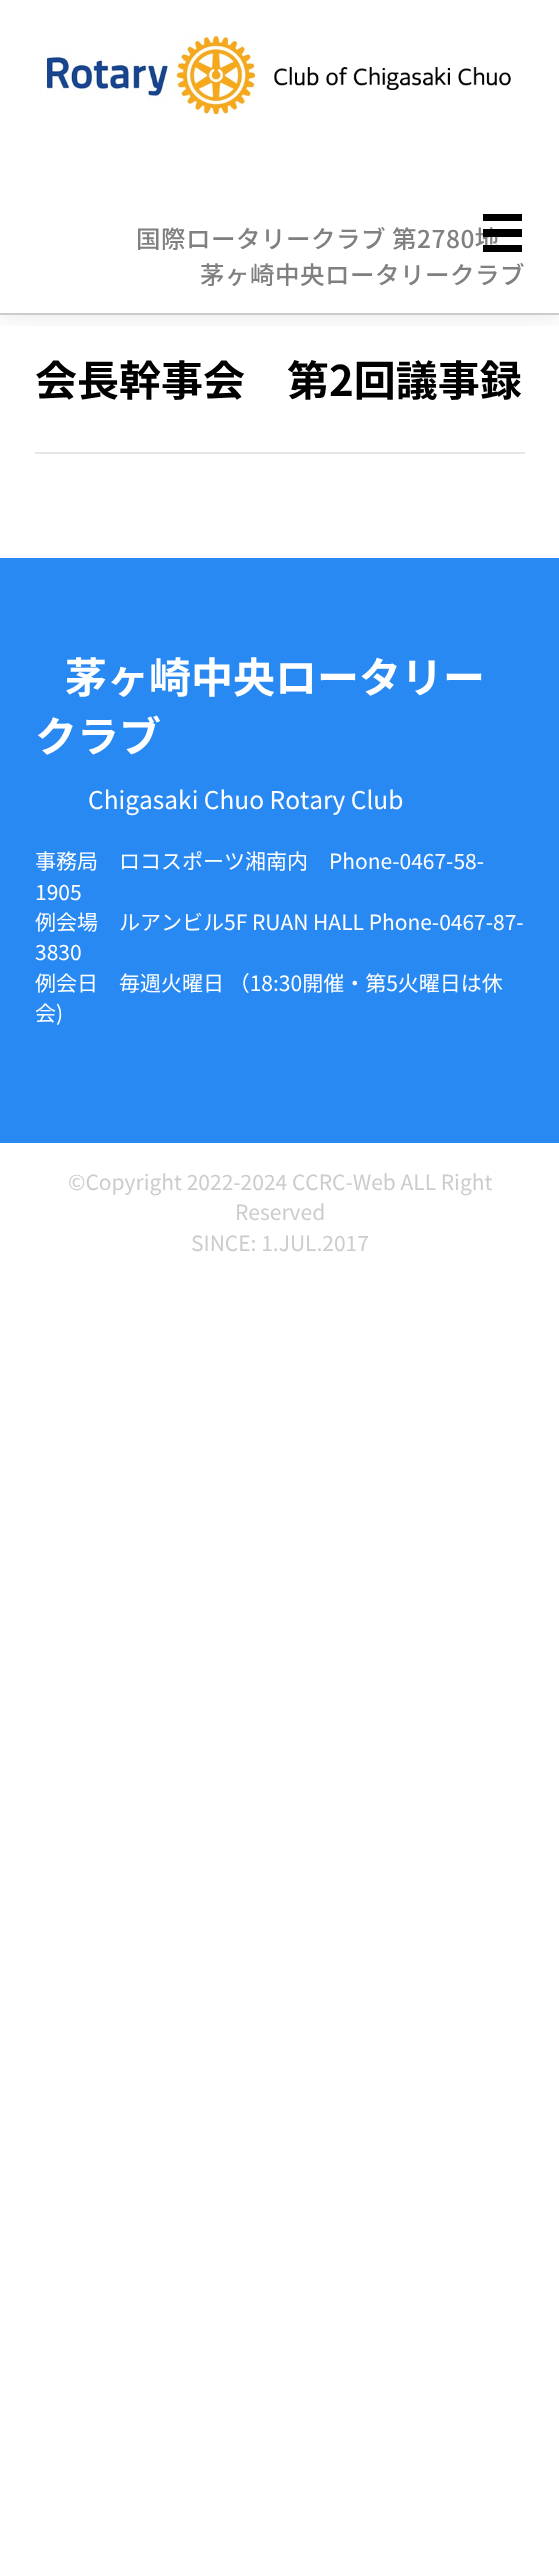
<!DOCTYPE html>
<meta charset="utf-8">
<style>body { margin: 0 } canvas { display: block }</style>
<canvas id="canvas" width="559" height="2567"></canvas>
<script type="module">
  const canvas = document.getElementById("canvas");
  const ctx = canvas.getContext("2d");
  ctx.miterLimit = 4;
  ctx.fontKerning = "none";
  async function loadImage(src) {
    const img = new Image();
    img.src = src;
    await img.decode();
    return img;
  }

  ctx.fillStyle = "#ffffff";
  ctx.fillRect(0, 0, 559, 2567);
  ctx.save();
  ctx.beginPath();
  ctx.rect(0, 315, 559, 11);
  ctx.clip();
  ctx.fillStyle = "rgba(0, 0, 0, 0.1)";
  ctx.filter = "blur(13px)";
  ctx.beginPath();
  ctx.rect(0, 0, 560, 315);
  ctx.fill();
  ctx.filter = "none";
  ctx.restore();
  ctx.fillStyle = "#cccccc";
  ctx.fillRect(0, 313, 559, 2);
  ctx.fillStyle = "#000000";
  ctx.fillRect(483, 214, 39, 7);
  ctx.letterSpacing = "0.5px";
  ctx.font = "500 24.5px Noto Sans JP";
  ctx.fillStyle = "#808080";
  ctx.fillText("国際ロータリークラブ 第2780地", 136, 248);
  ctx.fillStyle = "#000000";
  ctx.fillRect(483, 229, 39, 8);
  ctx.fillRect(483, 245, 39, 7);
  ctx.drawImage(await loadImage("img1.png"), 47, 36, 464, 78);
  ctx.fillStyle = "#808080";
  ctx.fillText("茅ヶ崎中央ロータリークラブ", 200, 284);
  ctx.letterSpacing = "0px";
  ctx.font = "bold 42px Noto Sans JP";
  ctx.fillStyle = "#000000";
  ctx.fillText("会長幹事会　第2回議事録", 35, 396);
  ctx.fillStyle = "#e6e6e6";
  ctx.fillRect(35, 452, 490, 2);
  ctx.fillStyle = "#2989f3";
  ctx.fillRect(0, 558, 559, 585);
  ctx.fillStyle = "#ffffff";
  ctx.fillText("茅ヶ崎中央ロータリー", 65, 693);
  ctx.fillText("クラブ", 35, 752);
  ctx.font = "24.5px Noto Sans JP";
  ctx.fillText("Chigasaki Chuo Rotary Club", 88, 809);
  ctx.font = "21px Noto Sans JP";
  ctx.fillText("事務局　ロコスポーツ湘南内　Phone-0467-58-", 35, 869);
  ctx.fillText("1905", 35, 900);
  ctx.fillText("例会場　ルアンビル5F RUAN HALL Phone-0467-87-", 35, 930);
  ctx.fillText("3830", 35, 960);
  ctx.fillText("例会日　毎週火曜日 （18:30開催・第5火曜日は休", 35, 991);
  ctx.fillText("会)", 35, 1021);
  ctx.fillStyle = "#cccccc";
  ctx.fillText("©Copyright 2022-2024 CCRC-Web ALL Right", 68, 1190);
  ctx.fillText("Reserved", 235, 1220);
  ctx.fillText("SINCE: 1.JUL.2017", 191, 1251);
</script>
